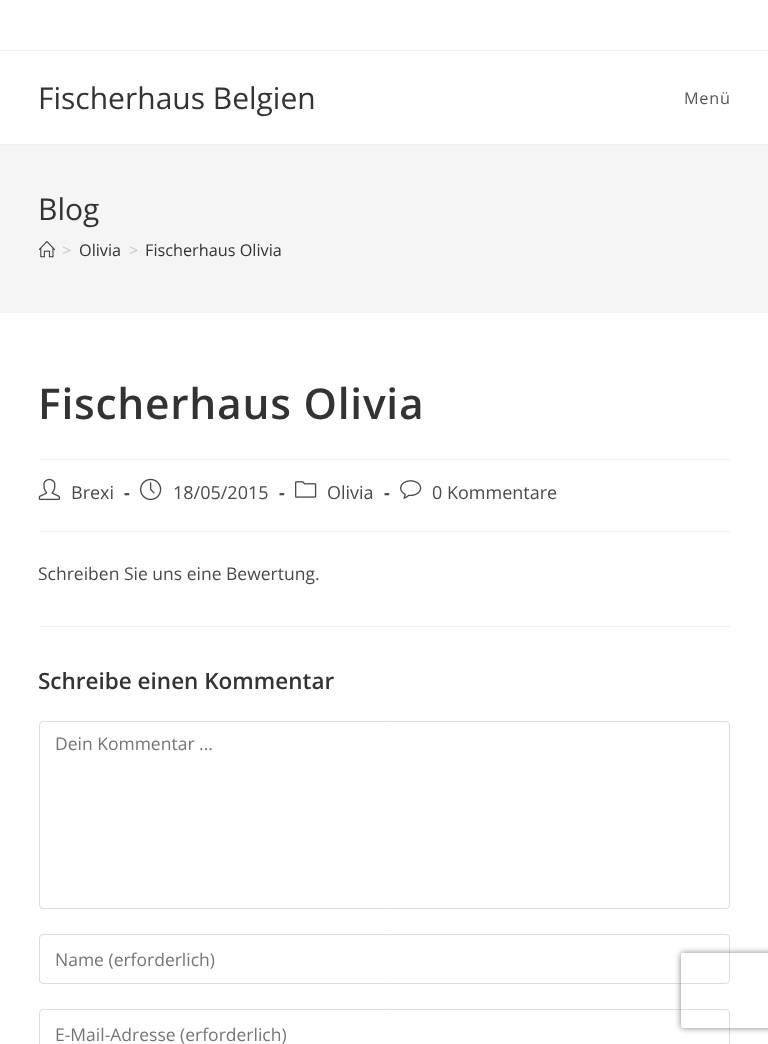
<!DOCTYPE html>
<meta charset="utf-8">
<style>body { margin: 0 } canvas { display: block }</style>
<canvas id="canvas" width="768" height="1044"></canvas>
<script type="module">
  const canvas = document.getElementById("canvas");
  const ctx = canvas.getContext("2d");
  ctx.miterLimit = 4;
  ctx.fontKerning = "normal";
  async function loadImage(src) {
    const img = new Image();
    img.src = src;
    await img.decode();
    return img;
  }

  ctx.fillStyle = "#ffffff";
  ctx.fillRect(0, 0, 768, 1044);
  ctx.fillStyle = "#f1f1f1";
  ctx.fillRect(0, 50, 768, 1);
  ctx.fillRect(0, 144, 768, 1);
  ctx.font = "30px Open Sans";
  ctx.fillStyle = "#333333";
  ctx.fillText("Fischerhaus Belgien", 38, 109);
  ctx.letterSpacing = "0.75px";
  ctx.font = "16.25px Open Sans";
  ctx.fillStyle = "#555555";
  ctx.fillText("Menü", 684, 104);
  ctx.fillStyle = "#f5f5f5";
  ctx.fillRect(0, 145, 768, 168);
  ctx.letterSpacing = "0px";
  ctx.font = "30px Open Sans";
  ctx.fillStyle = "#333333";
  ctx.fillText("Blog", 38, 220);
  ctx.drawImage(await loadImage("img1.png"), 39, 241, 16, 17);
  ctx.font = "16.25px Open Sans";
  ctx.fillStyle = "#c6c6c6";
  ctx.fillText(">", 62, 256);
  ctx.fillStyle = "#333333";
  ctx.fillText("Olivia", 79, 256);
  ctx.fillStyle = "#c6c6c6";
  ctx.fillText(">", 129, 256);
  ctx.fillStyle = "#333333";
  ctx.fillText("Fischerhaus Olivia", 145, 256);
  ctx.fillStyle = "#f1f1f1";
  ctx.fillRect(39, 459, 691, 1);
  ctx.letterSpacing = "0.75px";
  ctx.font = "600 42.5px Open Sans";
  ctx.fillStyle = "#333333";
  ctx.fillText("Fischerhaus Olivia", 38, 419);
  ctx.fillStyle = "#f1f1f1";
  ctx.fillRect(39, 531, 691, 1);
  ctx.drawImage(await loadImage("img2.png"), 38, 478, 22, 23);
  ctx.letterSpacing = "0px";
  ctx.font = "18px Open Sans";
  ctx.fillStyle = "#4a4a4a";
  ctx.fillText("Brexi", 71, 499);
  ctx.font = "bold 18px Open Sans";
  ctx.fillText("-", 124, 499);
  ctx.drawImage(await loadImage("img3.png"), 140, 478, 22, 23);
  ctx.font = "18px Open Sans";
  ctx.fillText("18/05/2015", 173, 499);
  ctx.font = "bold 18px Open Sans";
  ctx.fillText("-", 279, 499);
  ctx.drawImage(await loadImage("img4.png"), 295, 481, 22, 17);
  ctx.font = "18px Open Sans";
  ctx.fillText("Olivia", 327, 499);
  ctx.font = "bold 18px Open Sans";
  ctx.fillText("-", 384, 499);
  ctx.drawImage(await loadImage("img5.png"), 400, 480, 22, 19);
  ctx.font = "18px Open Sans";
  ctx.fillText("0 Kommentare", 432, 499);
  ctx.font = "17.5px Open Sans";
  ctx.fillText("Schreiben Sie uns eine Bewertung.", 38, 580);
  ctx.fillStyle = "#f1f1f1";
  ctx.fillRect(39, 626, 691, 1);
  ctx.font = "600 22.5px Open Sans";
  ctx.fillStyle = "#333333";
  ctx.fillText("Schreibe einen Kommentar", 38, 689);
  ctx.beginPath();
  ctx.roundRect(39.5, 721.5, 690, 187, 3.5);
  ctx.strokeStyle = "#dddddd";
  ctx.stroke();
  ctx.font = "17.5px Open Sans";
  ctx.fillStyle = "#757575";
  ctx.fillText("Dein Kommentar ...", 55, 750);
  ctx.beginPath();
  ctx.roundRect(39.5, 934.5, 690, 49, 3.5);
  ctx.stroke();
  ctx.fillText("Name (erforderlich)", 55, 966);
  ctx.beginPath();
  ctx.roundRect(39.5, 1009.5, 690, 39, 3.5);
  ctx.stroke();
  ctx.fillText("E-Mail-Adresse (erforderlich)", 55, 1041);
  ctx.save();
  ctx.beginPath();
  ctx.moveTo(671, 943);
  ctx.lineTo(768, 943);
  ctx.lineTo(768, 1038);
  ctx.lineTo(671, 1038);
  ctx.closePath();
  ctx.moveTo(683.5, 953);
  ctx.lineTo(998.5, 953);
  ctx.bezierCurveTo(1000, 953, 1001, 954, 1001, 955.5);
  ctx.lineTo(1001, 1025.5);
  ctx.bezierCurveTo(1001, 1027, 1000, 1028, 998.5, 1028);
  ctx.lineTo(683.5, 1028);
  ctx.bezierCurveTo(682, 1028, 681, 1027, 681, 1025.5);
  ctx.lineTo(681, 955.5);
  ctx.bezierCurveTo(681, 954, 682, 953, 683.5, 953);
  ctx.closePath();
  ctx.clip("evenodd");
  ctx.fillStyle = "#808080";
  ctx.filter = "blur(3px)";
  ctx.beginPath();
  ctx.roundRect(681, 953, 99, 75, 2.5);
  ctx.fill();
  ctx.filter = "none";
  ctx.restore();
</script>
